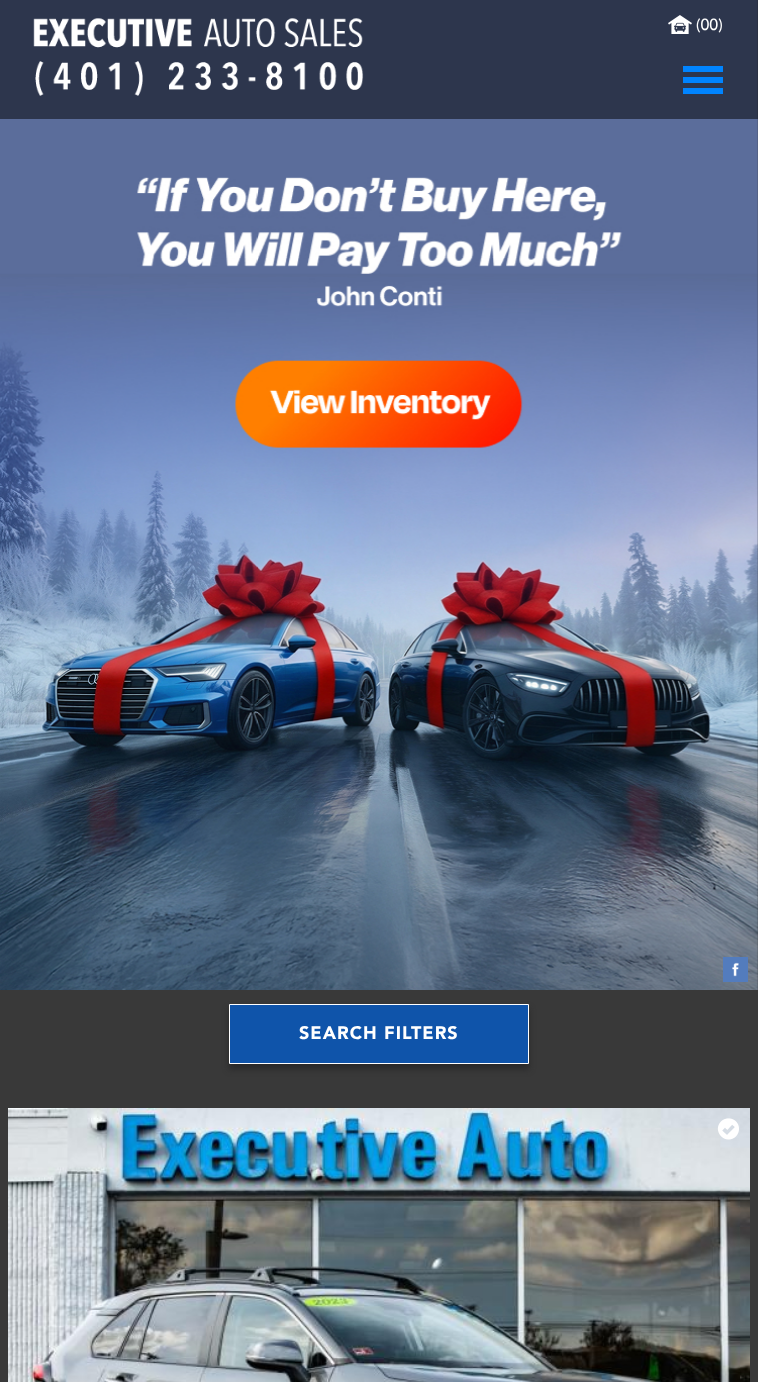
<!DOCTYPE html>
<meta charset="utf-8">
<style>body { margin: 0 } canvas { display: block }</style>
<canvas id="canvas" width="758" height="1382"></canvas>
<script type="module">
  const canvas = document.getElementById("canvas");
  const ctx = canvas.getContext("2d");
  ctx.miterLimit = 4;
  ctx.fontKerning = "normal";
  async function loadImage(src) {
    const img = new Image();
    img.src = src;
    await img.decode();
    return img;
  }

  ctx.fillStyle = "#393939";
  ctx.fillRect(0, 0, 758, 1382);
  ctx.drawImage(await loadImage("img3.png"), 0, 0, 758, 990);
  ctx.fillStyle = "rgba(0, 0, 0, 0.5)";
  ctx.fillRect(0, 0, 758, 119);
  ctx.drawImage(await loadImage("img1.png"), 33, 18, 331, 78);
  ctx.drawImage(await loadImage("img2.png"), 668, 15, 24, 19);
  ctx.font = "500 16px Avenir";
  ctx.fillStyle = "#ffffff";
  ctx.fillText("(00)", 696, 30);
  ctx.fillStyle = "#0084ff";
  ctx.fillRect(683, 66, 40, 6);
  ctx.fillRect(683, 77, 40, 6);
  ctx.fillRect(683, 88, 40, 6);
  ctx.drawImage(await loadImage("img4.png"), 723, 957, 25, 25);
  ctx.fillStyle = "rgba(22, 22, 23, 0.5)";
  ctx.filter = "blur(3.5px)";
  ctx.beginPath();
  ctx.rect(229, 1009, 300, 60);
  ctx.fill();
  ctx.filter = "none";
  ctx.fillStyle = "#0f54aa";
  ctx.beginPath();
  ctx.rect(229.5, 1004.5, 299, 59);
  ctx.fill();
  ctx.strokeStyle = "#ffffff";
  ctx.stroke();
  ctx.letterSpacing = "1px";
  ctx.font = "900 18px Avenir";
  ctx.fillStyle = "#ffffff";
  ctx.fillText("SEARCH FILTERS", 299, 1039);
  ctx.drawImage(await loadImage("img5.png"), 8, 1108, 742, 274);
  ctx.drawImage(await loadImage("img6.png"), 717, 1118, 22, 22);
</script>
